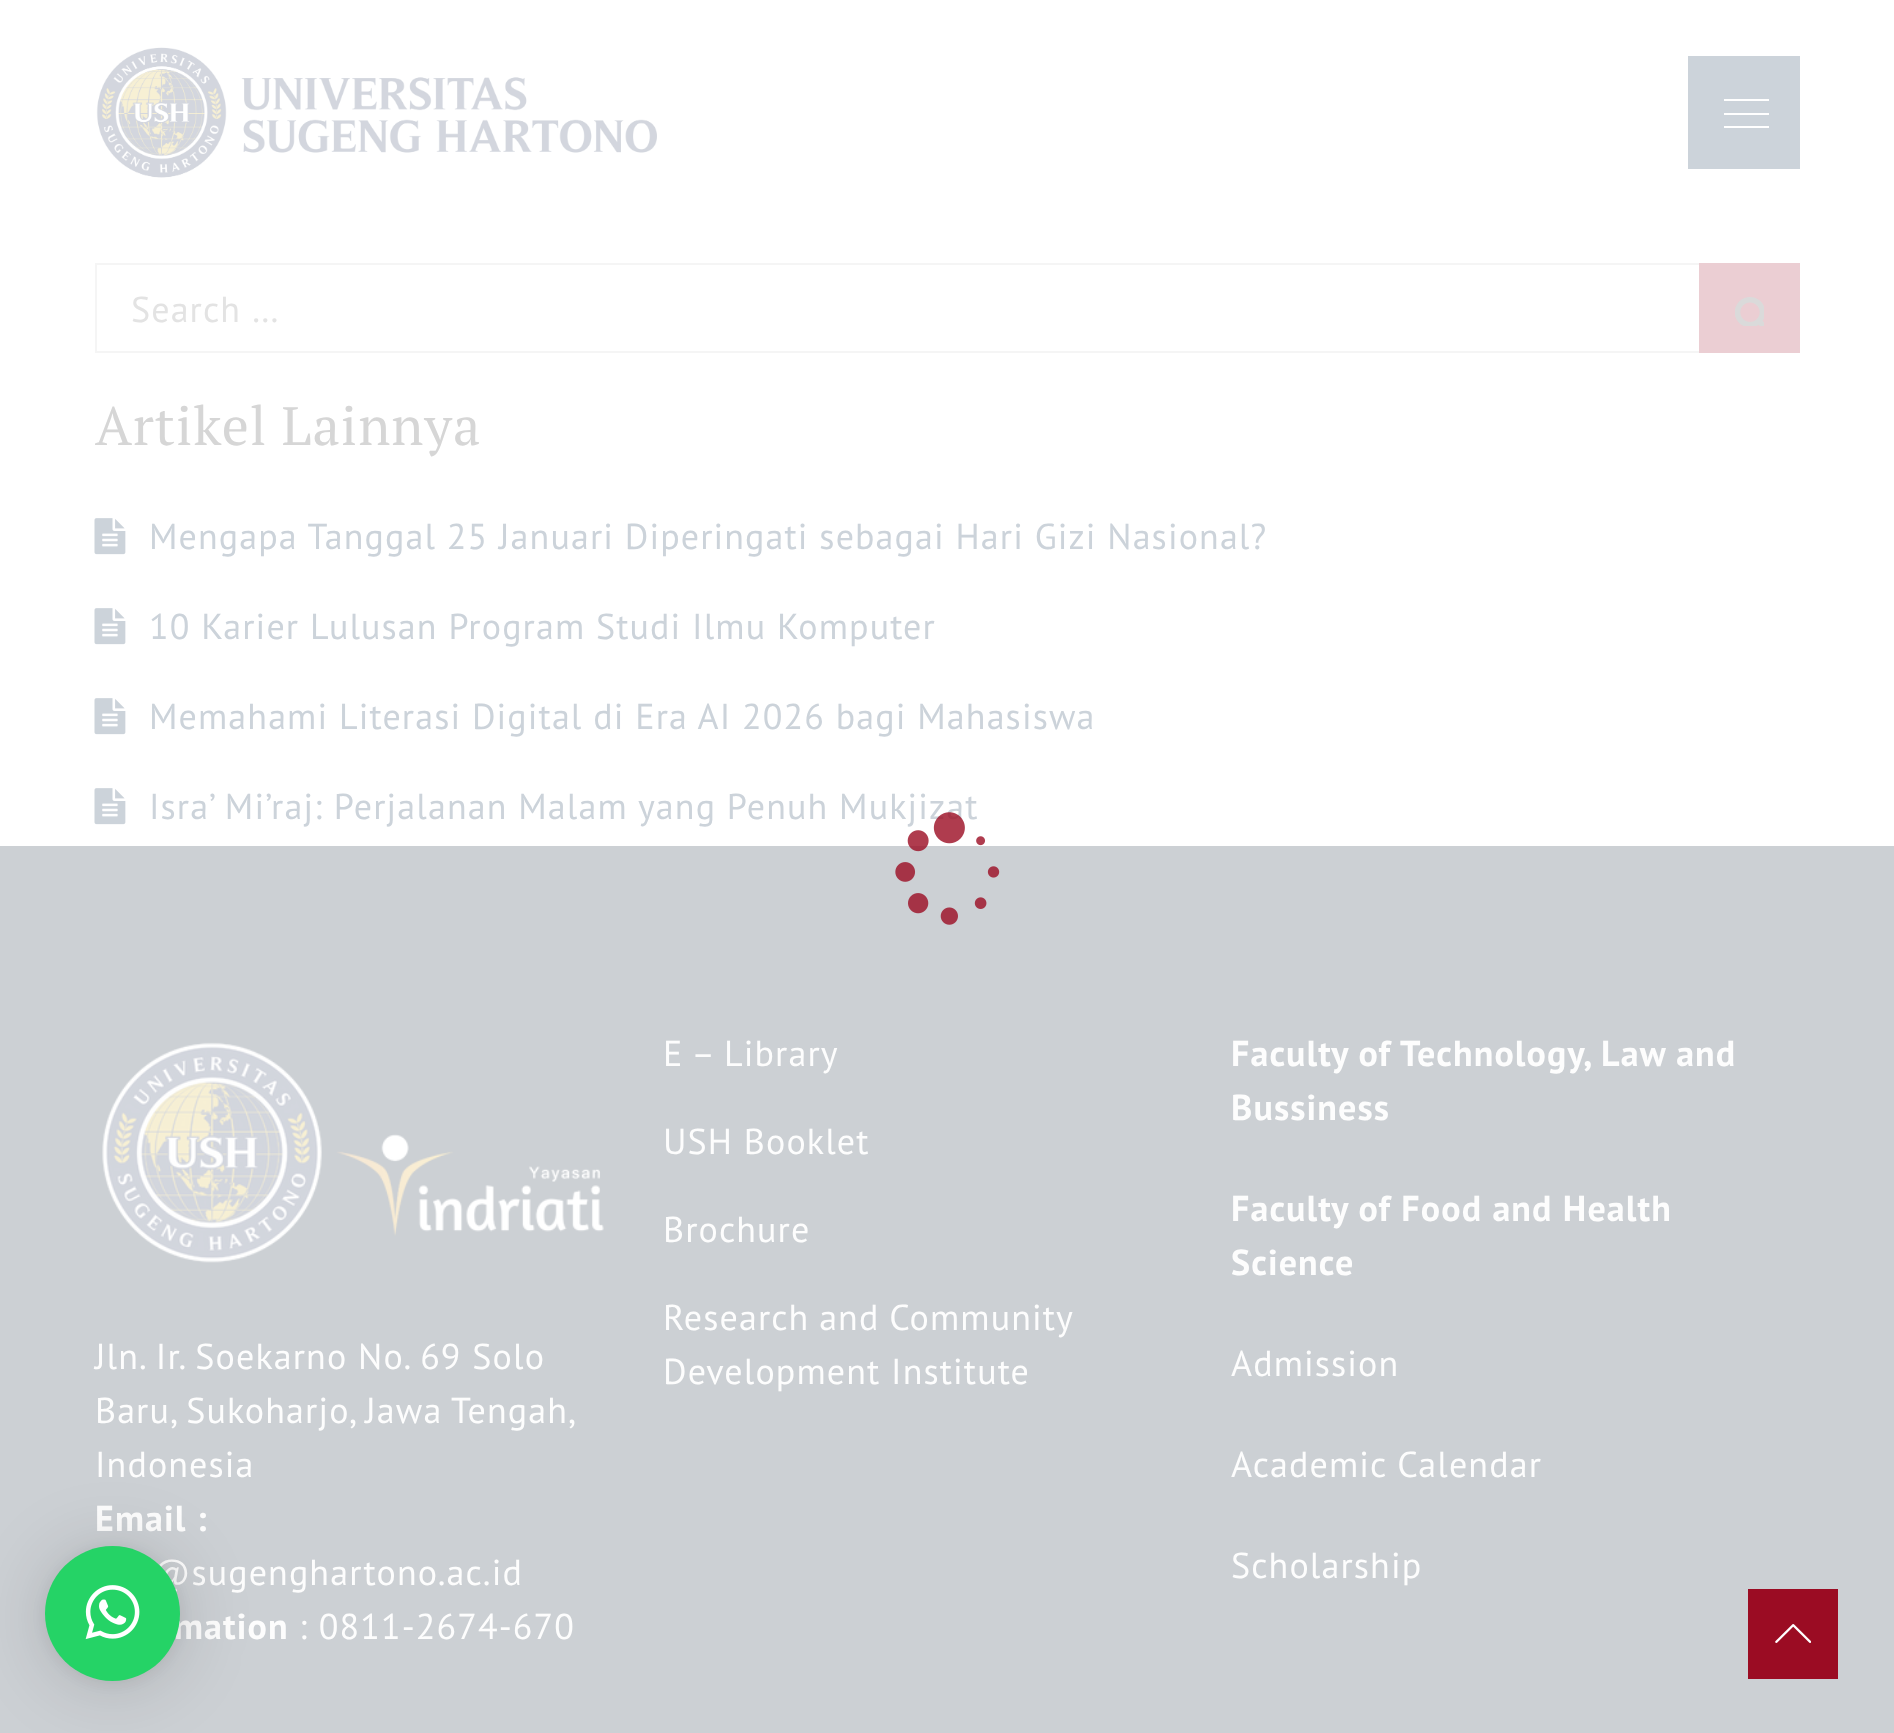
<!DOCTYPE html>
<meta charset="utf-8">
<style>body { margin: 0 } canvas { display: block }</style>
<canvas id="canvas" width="1894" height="1733"></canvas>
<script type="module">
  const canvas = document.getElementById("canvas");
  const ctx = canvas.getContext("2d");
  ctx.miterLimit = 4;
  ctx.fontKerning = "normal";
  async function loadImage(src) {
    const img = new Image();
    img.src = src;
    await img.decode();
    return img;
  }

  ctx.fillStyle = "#ffffff";
  ctx.fillRect(0, 0, 1894, 1733);
  ctx.drawImage(await loadImage("img1.png"), 96, 47, 561, 131);
  ctx.fillStyle = "#ccd3da";
  ctx.fillRect(1688, 56, 112, 113);
  ctx.fillStyle = "#ffffff";
  ctx.fillRect(1724, 99, 45, 2);
  ctx.fillRect(1724, 113, 45, 2);
  ctx.fillRect(1724, 126, 45, 2);
  ctx.strokeStyle = "#f5f5f5";
  ctx.lineWidth = 2;
  ctx.strokeRect(96, 264, 1703, 88);
  ctx.letterSpacing = "1.12px";
  ctx.font = "36px PT Sans";
  ctx.fillStyle = "#e3e3e3";
  ctx.fillText("Search …", 131, 322);
  ctx.fillStyle = "#ebced3";
  ctx.fillRect(1699, 263, 101, 90);
  ctx.drawImage(await loadImage("img2.png"), 1735, 297, 29, 29);
  ctx.font = "54px PT Serif";
  ctx.fillStyle = "#d6d6d6";
  ctx.fillText("Artikel Lainnya", 95, 445);
  ctx.drawImage(await loadImage("img3.png"), 94, 518, 32, 37);
  ctx.font = "36px PT Sans";
  ctx.fillStyle = "#ccd3da";
  ctx.fillText("Mengapa Tanggal 25 Januari Diperingati sebagai Hari Gizi Nasional?", 149, 549);
  ctx.drawImage(await loadImage("img3.png"), 94, 608, 32, 37);
  ctx.fillText("10 Karier Lulusan Program Studi Ilmu Komputer", 149, 639);
  ctx.drawImage(await loadImage("img3.png"), 94, 698, 32, 37);
  ctx.fillText("Memahami Literasi Digital di Era AI 2026 bagi Mahasiswa", 149, 729);
  ctx.drawImage(await loadImage("img3.png"), 94, 788, 32, 37);
  ctx.fillText("Isra’ Mi’raj: Perjalanan Malam yang Penuh Mukjizat", 149, 819);
  ctx.fillStyle = "#ccd0d4";
  ctx.fillRect(0, 846, 1894, 887);
  ctx.drawImage(await loadImage("img4.png"), 895, 812, 105, 113);
  ctx.drawImage(await loadImage("img5.png"), 102, 1042, 502, 221);
  ctx.fillStyle = "#fdfdfd";
  ctx.fillText("Jln. Ir. Soekarno No. 69 Solo", 95, 1369);
  ctx.wordSpacing = "-1px";
  ctx.fillText("Baru, Sukoharjo, Jawa Tengah,", 95, 1423);
  ctx.wordSpacing = "0px";
  ctx.fillText("Indonesia", 95, 1477);
  ctx.font = "bold 36px PT Sans";
  ctx.fillText("Email :", 95, 1531);
  ctx.font = "36px PT Sans";
  ctx.fillText("@sugenghartono.ac.id", 152, 1585);
  ctx.font = "bold 36px PT Sans";
  ctx.fillText("mation", 174, 1639);
  ctx.font = "36px PT Sans";
  ctx.fillText(": 0811-2674-670", 299, 1639);
  ctx.fillText("E – Library", 663, 1066);
  ctx.fillText("USH Booklet", 663, 1154);
  ctx.fillText("Brochure", 663, 1242);
  ctx.wordSpacing = "-1px";
  ctx.fillText("Research and Community", 663, 1330);
  ctx.wordSpacing = "0px";
  ctx.fillText("Development Institute", 663, 1384);
  ctx.font = "bold 36px PT Sans";
  ctx.fillText("Faculty of Technology, Law and", 1231, 1066);
  ctx.fillText("Bussiness", 1231, 1120);
  ctx.fillText("Faculty of Food and Health", 1231, 1221);
  ctx.fillText("Science", 1231, 1275);
  ctx.font = "36px PT Sans";
  ctx.fillText("Admission", 1231, 1376);
  ctx.fillText("Academic Calendar", 1231, 1477);
  ctx.fillText("Scholarship", 1231, 1578);
  ctx.fillStyle = "#9b0c23";
  ctx.fillRect(1748, 1589, 90, 90);
  ctx.drawImage(await loadImage("img6.png"), 1775, 1624, 36, 19);
  ctx.fillStyle = "rgba(0, 0, 0, 0.16)";
  ctx.filter = "blur(36px)";
  ctx.beginPath();
  ctx.roundRect(45, 1550, 135, 135, 67.5);
  ctx.fill();
  ctx.filter = "none";
  ctx.fillStyle = "rgba(0, 0, 0, 0.06)";
  ctx.filter = "blur(7px)";
  ctx.beginPath();
  ctx.roundRect(45, 1548, 135, 135, 67.5);
  ctx.fill();
  ctx.filter = "none";
  ctx.fillStyle = "#25d366";
  ctx.beginPath();
  ctx.arc(112.5, 1613.5, 67.5, 0, Math.PI * 2);
  ctx.fill();
  ctx.drawImage(await loadImage("img7.png"), 85, 1585, 55, 55);
</script>
